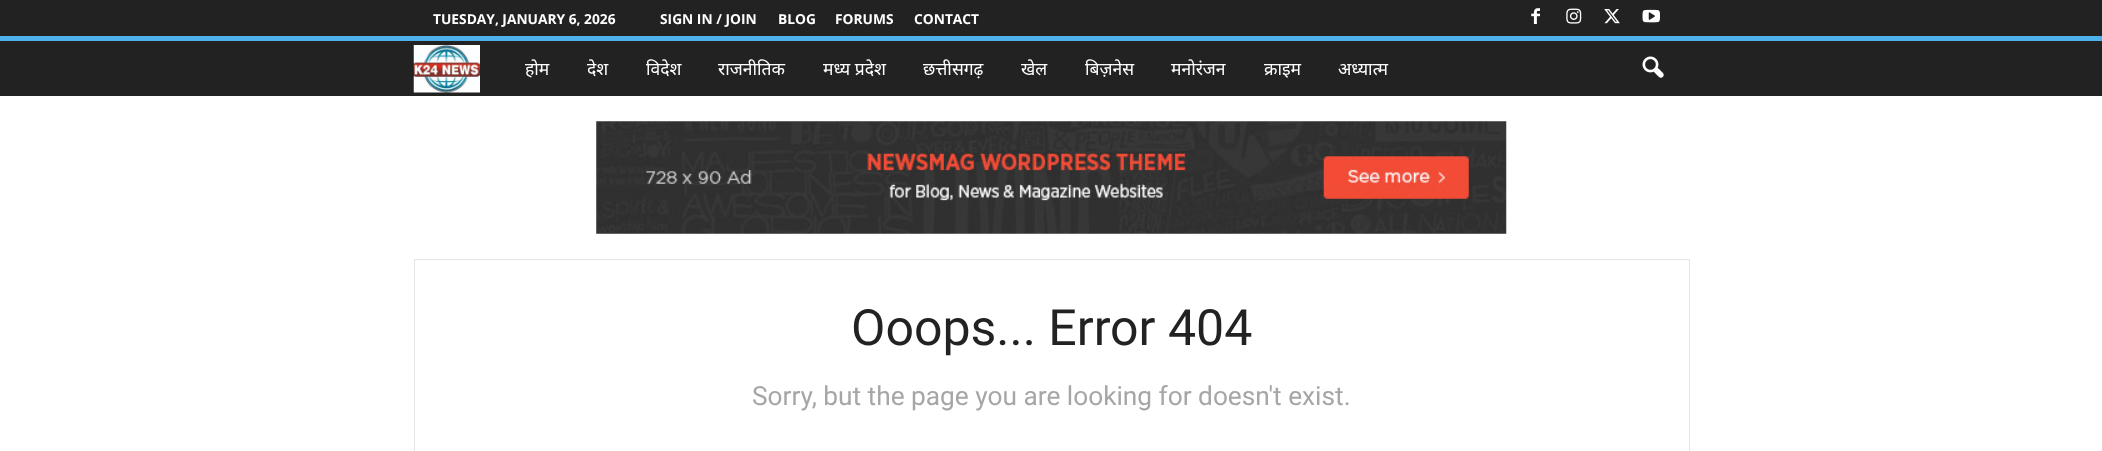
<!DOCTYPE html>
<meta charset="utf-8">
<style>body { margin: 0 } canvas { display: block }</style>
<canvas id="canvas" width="2102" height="451"></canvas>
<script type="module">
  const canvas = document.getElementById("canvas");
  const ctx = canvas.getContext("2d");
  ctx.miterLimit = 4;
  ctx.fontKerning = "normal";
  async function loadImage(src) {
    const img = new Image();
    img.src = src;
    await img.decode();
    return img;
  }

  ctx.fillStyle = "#ffffff";
  ctx.fillRect(0, 0, 2102, 451);
  ctx.fillStyle = "#222222";
  ctx.fillRect(0, 0, 2102, 36);
  ctx.font = "bold 13.75px Open Sans";
  ctx.fillStyle = "#ffffff";
  ctx.fillText("TUESDAY, JANUARY 6, 2026", 433, 24);
  ctx.fillText("SIGN IN / JOIN", 660, 24);
  ctx.fillText("BLOG", 778, 24);
  ctx.fillText("FORUMS", 835, 24);
  ctx.fillText("CONTACT", 914, 24);
  ctx.drawImage(await loadImage("img1.png"), 1531, 8, 9, 16);
  ctx.drawImage(await loadImage("img2.png"), 1566, 8, 16, 16);
  ctx.drawImage(await loadImage("img3.png"), 1604, 9, 16, 15);
  ctx.drawImage(await loadImage("img4.png"), 1642, 9, 18, 14);
  ctx.fillStyle = "#222222";
  ctx.fillRect(0, 41, 2102, 55);
  ctx.fillStyle = "#4db2ec";
  ctx.fillRect(0, 36, 2102, 5);
  ctx.drawImage(await loadImage("img5.png"), 413, 45, 67, 48);
  ctx.font = "17.5px Noto Sans";
  ctx.fillStyle = "#ffffff";
  ctx.fillText("होम", 525, 75);
  ctx.fillText("देश", 587, 75);
  ctx.fillText("विदेश", 646, 75);
  ctx.fillText("राजनीतिक", 718, 75);
  ctx.fillText("मध्य प्रदेश", 823, 75);
  ctx.fillText("छत्तीसगढ़", 923, 75);
  ctx.fillText("खेल", 1021, 75);
  ctx.fillText("बिज़नेस", 1085, 75);
  ctx.fillText("मनोरंजन", 1171, 75);
  ctx.fillText("क्राइम", 1264, 75);
  ctx.fillText("अध्यात्म", 1338, 75);
  ctx.drawImage(await loadImage("img6.png"), 1642, 56, 22, 22);
  ctx.fillStyle = "#e6e6e6";
  ctx.fillRect(414, 259, 1276, 1);
  ctx.drawImage(await loadImage("img7.png"), 596, 121, 911, 113);
  ctx.fillRect(414, 260, 1, 191);
  ctx.font = "50px Roboto";
  ctx.fillStyle = "#222222";
  ctx.fillText("Ooops... Error 404", 851, 345);
  ctx.font = "26.25px Roboto";
  ctx.fillStyle = "#a6a6a6";
  ctx.fillText("Sorry, but the page you are looking for doesn't exist.", 752, 405);
  ctx.fillStyle = "#e6e6e6";
  ctx.fillRect(1689, 260, 1, 191);
</script>
